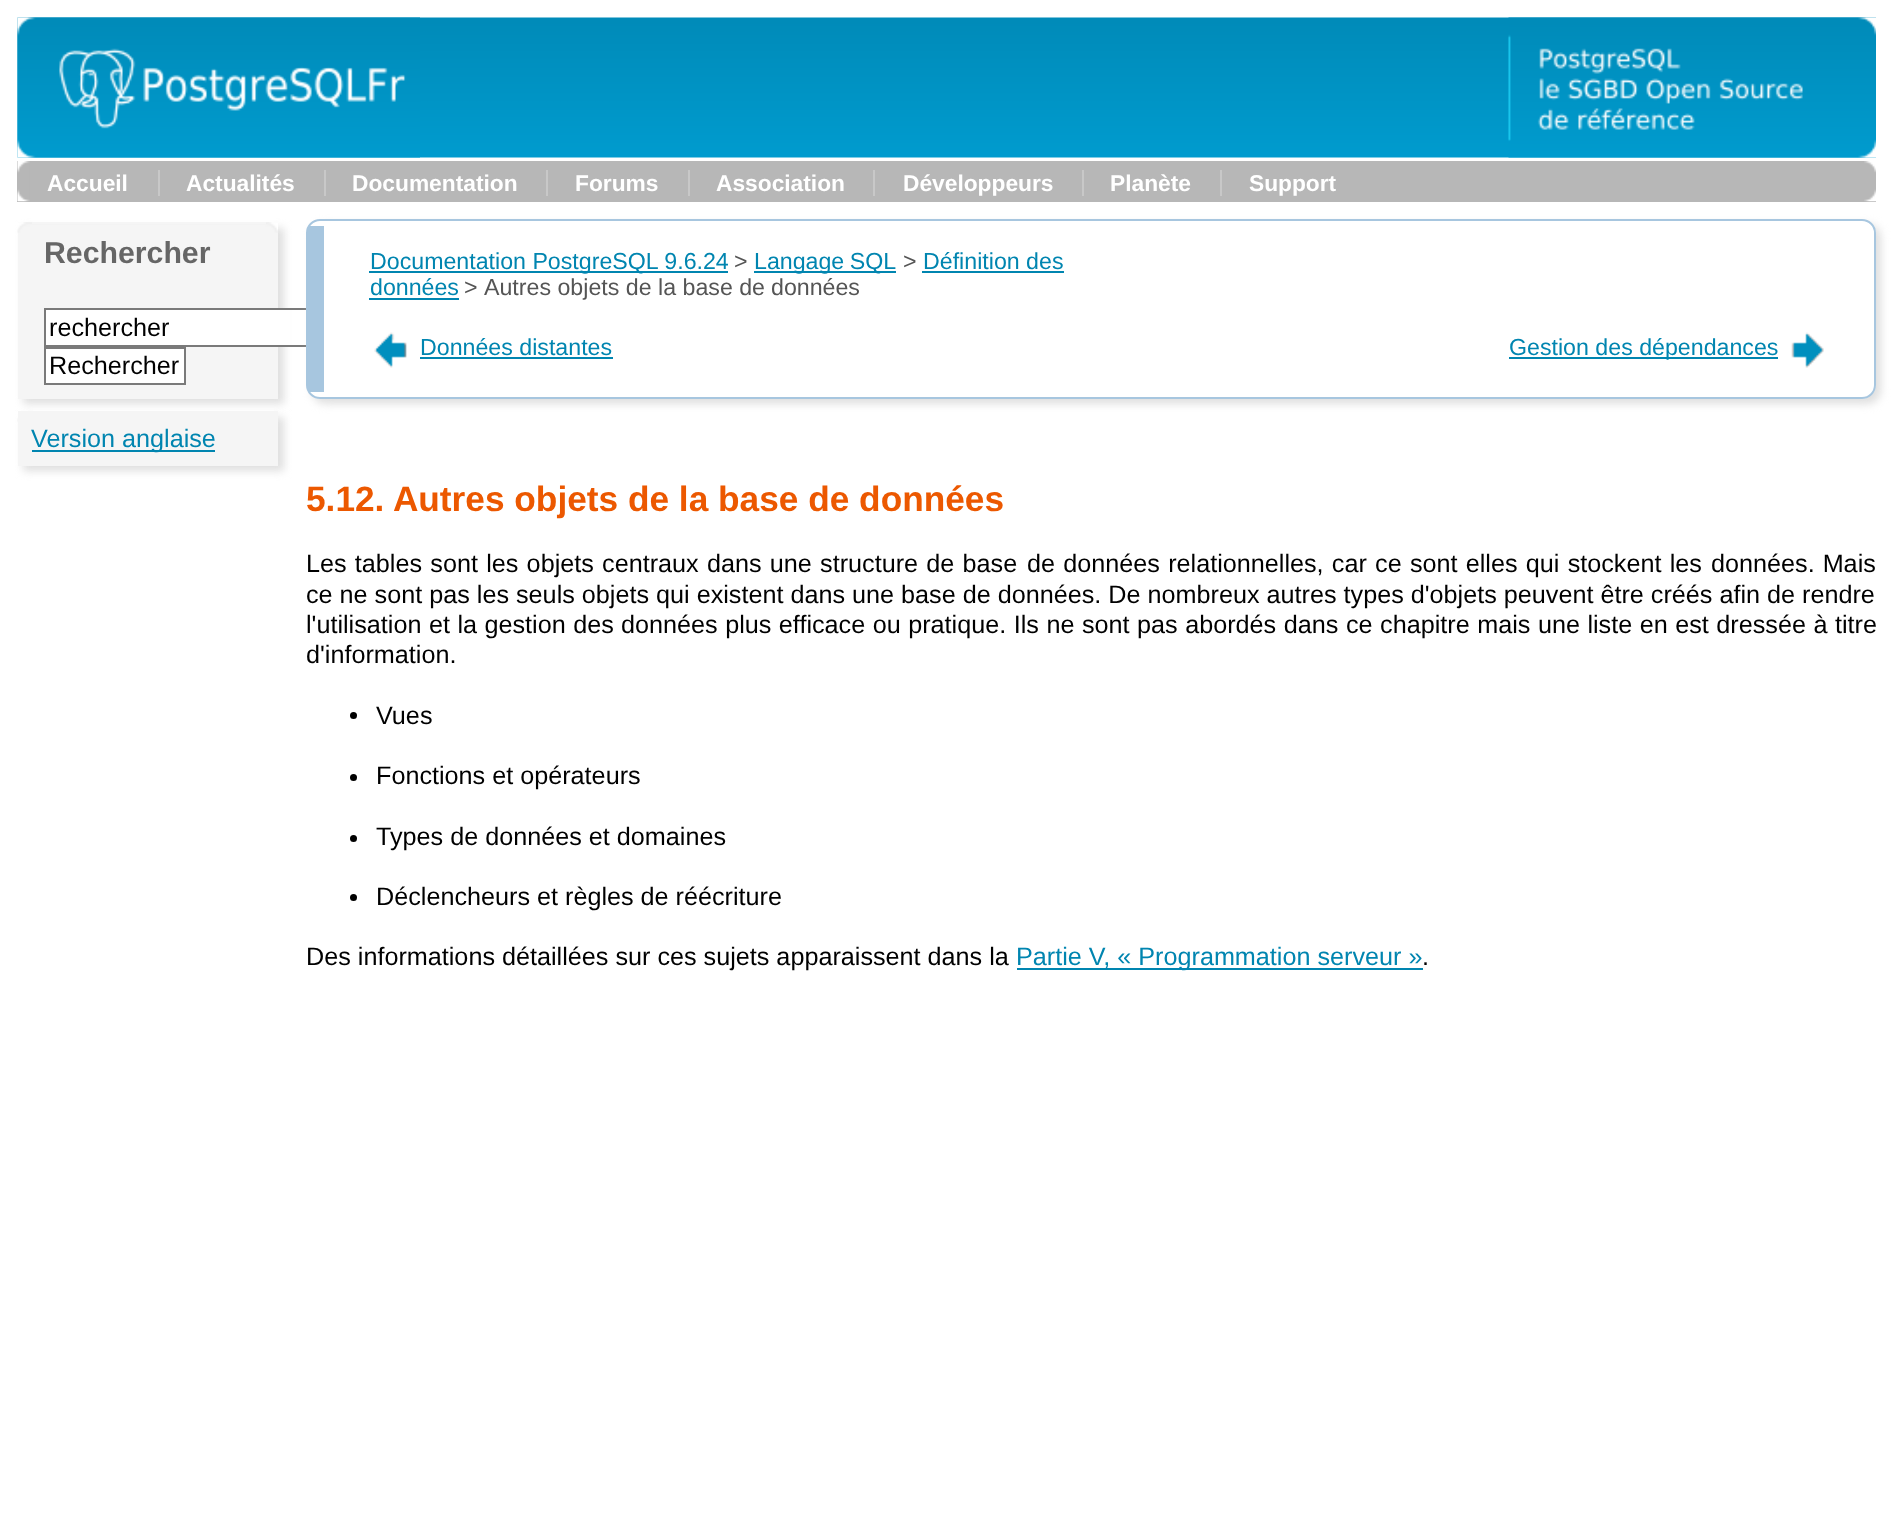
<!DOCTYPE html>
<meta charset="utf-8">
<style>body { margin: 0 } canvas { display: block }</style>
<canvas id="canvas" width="1892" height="1526"></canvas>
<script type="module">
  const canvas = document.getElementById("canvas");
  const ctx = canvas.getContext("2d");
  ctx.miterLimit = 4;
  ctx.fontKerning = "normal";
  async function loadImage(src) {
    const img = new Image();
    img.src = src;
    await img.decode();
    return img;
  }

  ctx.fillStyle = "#ffffff";
  ctx.fillRect(0, 0, 1892, 1526);
  ctx.drawImage(await loadImage("img1.png"), 17, 17, 1859, 141);
  ctx.drawImage(await loadImage("img2.png"), 17, 17, 403, 141);
  ctx.drawImage(await loadImage("img3.png"), 1508, 17, 368, 141);
  ctx.fillStyle = "#b7b7b7";
  ctx.fillRect(17, 161, 1859, 41);
  ctx.drawImage(await loadImage("img4.png"), 17, 161, 13, 41);
  ctx.font = "bold 22.75px Liberation Sans";
  ctx.fillStyle = "#ffffff";
  ctx.fillText("Accueil", 47, 191);
  ctx.fillText("Actualités", 186, 191);
  ctx.fillStyle = "#c8c8c8";
  ctx.fillRect(158, 170, 2, 26);
  ctx.fillStyle = "#ffffff";
  ctx.fillText("Documentation", 352, 191);
  ctx.fillStyle = "#c8c8c8";
  ctx.fillRect(324, 170, 2, 26);
  ctx.fillStyle = "#ffffff";
  ctx.fillText("Forums", 575, 191);
  ctx.fillStyle = "#c8c8c8";
  ctx.fillRect(546, 170, 2, 26);
  ctx.fillStyle = "#ffffff";
  ctx.fillText("Association", 716, 191);
  ctx.fillStyle = "#c8c8c8";
  ctx.fillRect(688, 170, 2, 26);
  ctx.fillStyle = "#ffffff";
  ctx.fillText("Développeurs", 903, 191);
  ctx.fillStyle = "#c8c8c8";
  ctx.fillRect(873, 170, 2, 26);
  ctx.fillStyle = "#ffffff";
  ctx.fillText("Planète", 1110, 191);
  ctx.fillStyle = "#c8c8c8";
  ctx.fillRect(1082, 170, 2, 26);
  ctx.fillStyle = "#ffffff";
  ctx.fillText("Support", 1249, 191);
  ctx.fillStyle = "#c8c8c8";
  ctx.fillRect(1220, 170, 2, 26);
  ctx.drawImage(await loadImage("img5.png"), 1864, 161, 12, 41);
  ctx.fillStyle = "#dfdfdf";
  ctx.filter = "blur(4.5px)";
  ctx.beginPath();
  ctx.rect(23, 228, 261, 176);
  ctx.fill();
  ctx.filter = "none";
  ctx.fillStyle = "#f5f5f5";
  ctx.fillRect(18, 222, 260, 177);
  ctx.drawImage(await loadImage("img6.png"), 17, 222, 261, 11);
  ctx.fillRect(32, 222, 234, 2);
  ctx.font = "bold 30.25px Liberation Sans";
  ctx.fillStyle = "#666666";
  ctx.fillText("Rechercher", 44, 263);
  ctx.fillStyle = "#ffffff";
  ctx.fillRect(46, 310, 244, 35);
  ctx.strokeStyle = "#7a7a7a";
  ctx.lineWidth = 2;
  ctx.strokeRect(45, 309, 276, 37);
  ctx.font = "25.2px Liberation Sans";
  ctx.fillStyle = "#000000";
  ctx.fillText("rechercher", 49, 336);
  ctx.fillStyle = "#ffffff";
  ctx.beginPath();
  ctx.rect(45, 348, 140, 36);
  ctx.fill();
  ctx.stroke();
  ctx.fillStyle = "#000000";
  ctx.fillText("Rechercher", 49, 374);
  ctx.fillStyle = "#dfdfdf";
  ctx.filter = "blur(4.5px)";
  ctx.beginPath();
  ctx.rect(23, 417, 261, 54);
  ctx.fill();
  ctx.filter = "none";
  ctx.drawImage(await loadImage("img7.png"), 17, 411, 1, 11);
  ctx.fillStyle = "#f5f5f5";
  ctx.fillRect(18, 411, 260, 55);
  ctx.fillStyle = "#0085b0";
  ctx.fillRect(32, 450, 183, 2);
  ctx.fillText("Version anglaise", 31, 447);
  ctx.save();
  ctx.beginPath();
  ctx.moveTo(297, 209);
  ctx.lineTo(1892, 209);
  ctx.lineTo(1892, 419);
  ctx.lineTo(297, 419);
  ctx.closePath();
  ctx.moveTo(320, 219);
  ctx.lineTo(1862, 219);
  ctx.bezierCurveTo(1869.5, 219, 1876, 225.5, 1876, 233);
  ctx.lineTo(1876, 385);
  ctx.bezierCurveTo(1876, 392.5, 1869.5, 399, 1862, 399);
  ctx.lineTo(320, 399);
  ctx.bezierCurveTo(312.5, 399, 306, 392.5, 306, 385);
  ctx.lineTo(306, 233);
  ctx.bezierCurveTo(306, 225.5, 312.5, 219, 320, 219);
  ctx.closePath();
  ctx.clip("evenodd");
  ctx.fillStyle = "#dfdfdf";
  ctx.filter = "blur(4.5px)";
  ctx.beginPath();
  ctx.roundRect(312, 224, 1569, 180, 14);
  ctx.fill();
  ctx.filter = "none";
  ctx.restore();
  ctx.beginPath();
  ctx.roundRect(307, 220, 1568, 178, 13);
  ctx.strokeStyle = "#a7c6df";
  ctx.stroke();
  ctx.fillStyle = "#a7c6df";
  ctx.fillRect(308, 226, 16, 166);
  ctx.fillStyle = "#0085b0";
  ctx.fillRect(369, 271, 359, 2);
  ctx.font = "23.2px Liberation Sans";
  ctx.fillText("Documentation PostgreSQL 9.6.24", 370, 269);
  ctx.fillStyle = "#555555";
  ctx.fillText(">", 734, 269);
  ctx.fillStyle = "#0085b0";
  ctx.fillRect(754, 271, 142, 2);
  ctx.wordSpacing = "-1px";
  ctx.fillText("Langage SQL", 754, 269);
  ctx.wordSpacing = "0px";
  ctx.fillStyle = "#555555";
  ctx.fillText(">", 903, 269);
  ctx.fillStyle = "#0085b0";
  ctx.fillText("Définition des", 923, 269);
  ctx.fillRect(922, 271, 142, 2);
  ctx.fillText("données", 370, 295);
  ctx.fillRect(369, 298, 90, 2);
  ctx.fillStyle = "#555555";
  ctx.fillText(">", 464, 295);
  ctx.fillText("Autres objets de la base de", 484, 295);
  ctx.fillText("données", 771, 295);
  ctx.drawImage(await loadImage("img8.png"), 374, 332, 33, 36);
  ctx.fillStyle = "#0085b0";
  ctx.fillText("Données distantes", 420, 355);
  ctx.fillRect(420, 357, 193, 2);
  ctx.fillRect(1509, 357, 269, 2);
  ctx.fillText("Gestion des dépendances", 1509, 355);
  ctx.drawImage(await loadImage("img9.png"), 1791, 332, 33, 36);
  ctx.font = "bold 35.25px Liberation Sans";
  ctx.fillStyle = "#ec5800";
  ctx.fillText("5.12. Autres objets de la base de données", 306, 511);
  ctx.wordSpacing = "1.25px";
  ctx.font = "25.2px Liberation Sans";
  ctx.fillStyle = "#000000";
  ctx.fillText("Les tables sont les objets centraux dans une structure de base", 306, 572);
  ctx.fillText("de données relationnelles, car ce sont elles qui stockent les", 1027, 572);
  ctx.wordSpacing = "1px";
  ctx.fillText("données. Mais", 1711, 572);
  ctx.wordSpacing = "0px";
  ctx.fillText("ce ne sont pas les seuls objets qui existent dans une base de données. De nombreux autres types d'objets peuvent être créés afin de rendre", 306, 603);
  ctx.wordSpacing = "0.5px";
  ctx.fillText("l'utilisation et la gestion des", 306, 633);
  ctx.fillText("données plus efficace ou pratique. Ils ne sont pas abordés dans", 621, 633);
  ctx.fillText("ce chapitre mais une liste en est dressée à titre", 1346, 633);
  ctx.wordSpacing = "0px";
  ctx.fillText("d'information.", 306, 663);
  ctx.beginPath();
  ctx.arc(353.5, 715.5, 3.5, 0, Math.PI * 2);
  ctx.fill();
  ctx.fillText("Vues", 376, 724);
  ctx.beginPath();
  ctx.arc(353.5, 777.5, 3.5, 0, Math.PI * 2);
  ctx.fill();
  ctx.fillText("Fonctions et opérateurs", 376, 784);
  ctx.beginPath();
  ctx.arc(353.5, 838.5, 3.5, 0, Math.PI * 2);
  ctx.fill();
  ctx.fillText("Types de données et domaines", 376, 845);
  ctx.beginPath();
  ctx.arc(353.5, 897.5, 3.5, 0, Math.PI * 2);
  ctx.fill();
  ctx.fillText("Déclencheurs et règles de réécriture", 376, 905);
  ctx.fillText("Des informations détaillées sur ces sujets apparaissent dans la", 306, 965);
  ctx.fillStyle = "#0085b0";
  ctx.fillRect(1017, 968, 406, 2);
  ctx.fillText("Partie V, « Programmation serveur »", 1016, 965);
  ctx.fillStyle = "#000000";
  ctx.fillText(".", 1422, 965);
</script>
